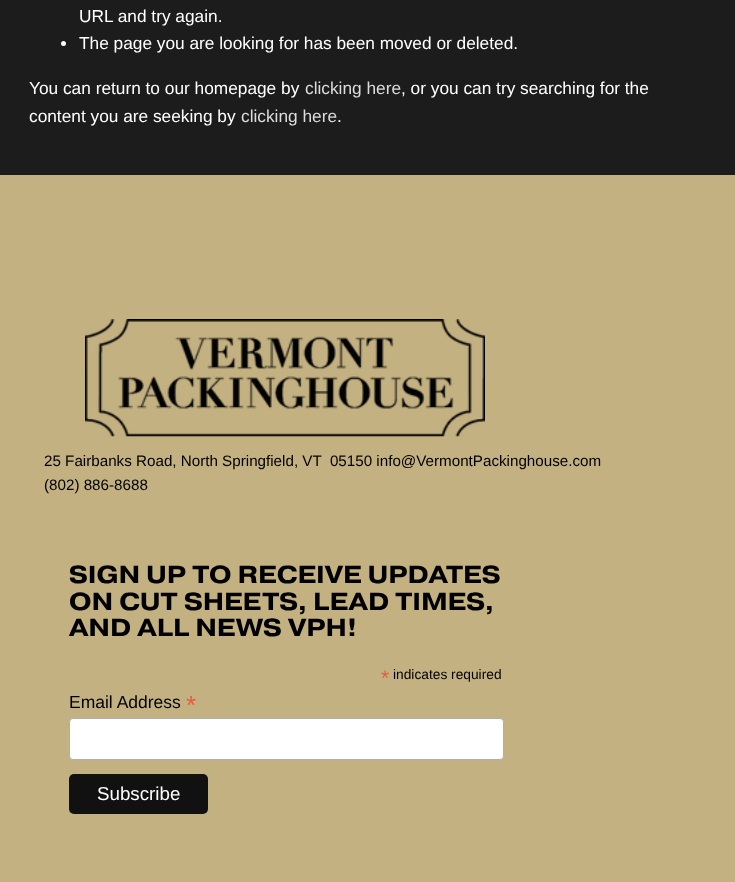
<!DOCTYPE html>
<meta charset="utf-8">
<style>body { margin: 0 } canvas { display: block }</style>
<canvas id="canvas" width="735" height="882"></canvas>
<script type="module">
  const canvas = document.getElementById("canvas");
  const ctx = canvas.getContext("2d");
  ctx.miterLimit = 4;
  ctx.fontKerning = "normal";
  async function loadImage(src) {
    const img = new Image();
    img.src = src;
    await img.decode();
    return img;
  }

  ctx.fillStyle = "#1c1c1c";
  ctx.fillRect(0, 0, 735, 882);
  ctx.font = "17.3px Liberation Sans";
  ctx.fillStyle = "#ffffff";
  ctx.fillText("URL and try again.", 79, 22);
  ctx.fillStyle = "#fafafa";
  ctx.beginPath();
  ctx.arc(63.5, 43.5, 2.5, 0, Math.PI * 2);
  ctx.fill();
  ctx.fillStyle = "#ffffff";
  ctx.fillText("The page you are looking for has been moved or deleted.", 79, 49);
  ctx.fillText("You can return to our homepage by", 29, 94);
  ctx.fillStyle = "#dcdcdc";
  ctx.fillText("clicking here", 305, 94);
  ctx.fillStyle = "#ffffff";
  ctx.fillText(", or you can try searching for the", 401, 94);
  ctx.fillText("content you are seeking by", 29, 122);
  ctx.fillStyle = "#dcdcdc";
  ctx.fillText("clicking here", 241, 122);
  ctx.fillStyle = "#ffffff";
  ctx.fillText(".", 337, 122);
  ctx.fillStyle = "#c3b182";
  ctx.fillRect(0, 175, 735, 707);
  ctx.drawImage(await loadImage("img1.png"), 85, 319, 400, 118);
  ctx.font = "15.2px Liberation Sans";
  ctx.fillStyle = "#000000";
  ctx.fillText("25 Fairbanks Road, North Springfield, VT  05150 info@VermontPackinghouse.com", 44, 466);
  ctx.fillText("(802) 886-8688", 44, 490);
  ctx.letterSpacing = "0.25px";
  ctx.font = "bold 24.5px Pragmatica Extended";
  ctx.fillText("SIGN UP TO RECEIVE UPDATES", 69, 583);
  ctx.fillText("ON CUT SHEETS, LEAD TIMES,", 69, 610);
  ctx.fillText("AND ALL NEWS VPH!", 69, 636);
  ctx.letterSpacing = "0px";
  ctx.font = "21px Liberation Sans";
  ctx.fillStyle = "#e85c41";
  ctx.fillText("*", 381, 685);
  ctx.font = "13.75px Liberation Sans";
  ctx.fillStyle = "#000000";
  ctx.fillText("indicates required", 393, 679);
  ctx.font = "17.5px Liberation Sans";
  ctx.fillText("Email Address", 69, 708);
  ctx.font = "26px Liberation Sans";
  ctx.fillStyle = "#e85c41";
  ctx.fillText("*", 186, 714);
  ctx.fillStyle = "#ffffff";
  ctx.beginPath();
  ctx.roundRect(69.5, 718.5, 434, 41, 3.5);
  ctx.fill();
  ctx.strokeStyle = "#abb0b2";
  ctx.stroke();
  ctx.fillStyle = "#111111";
  ctx.beginPath();
  ctx.roundRect(69, 774, 139, 40, 5);
  ctx.fill();
  ctx.font = "18.75px Liberation Sans";
  ctx.fillStyle = "#ffffff";
  ctx.fillText("Subscribe", 97, 800);
</script>
